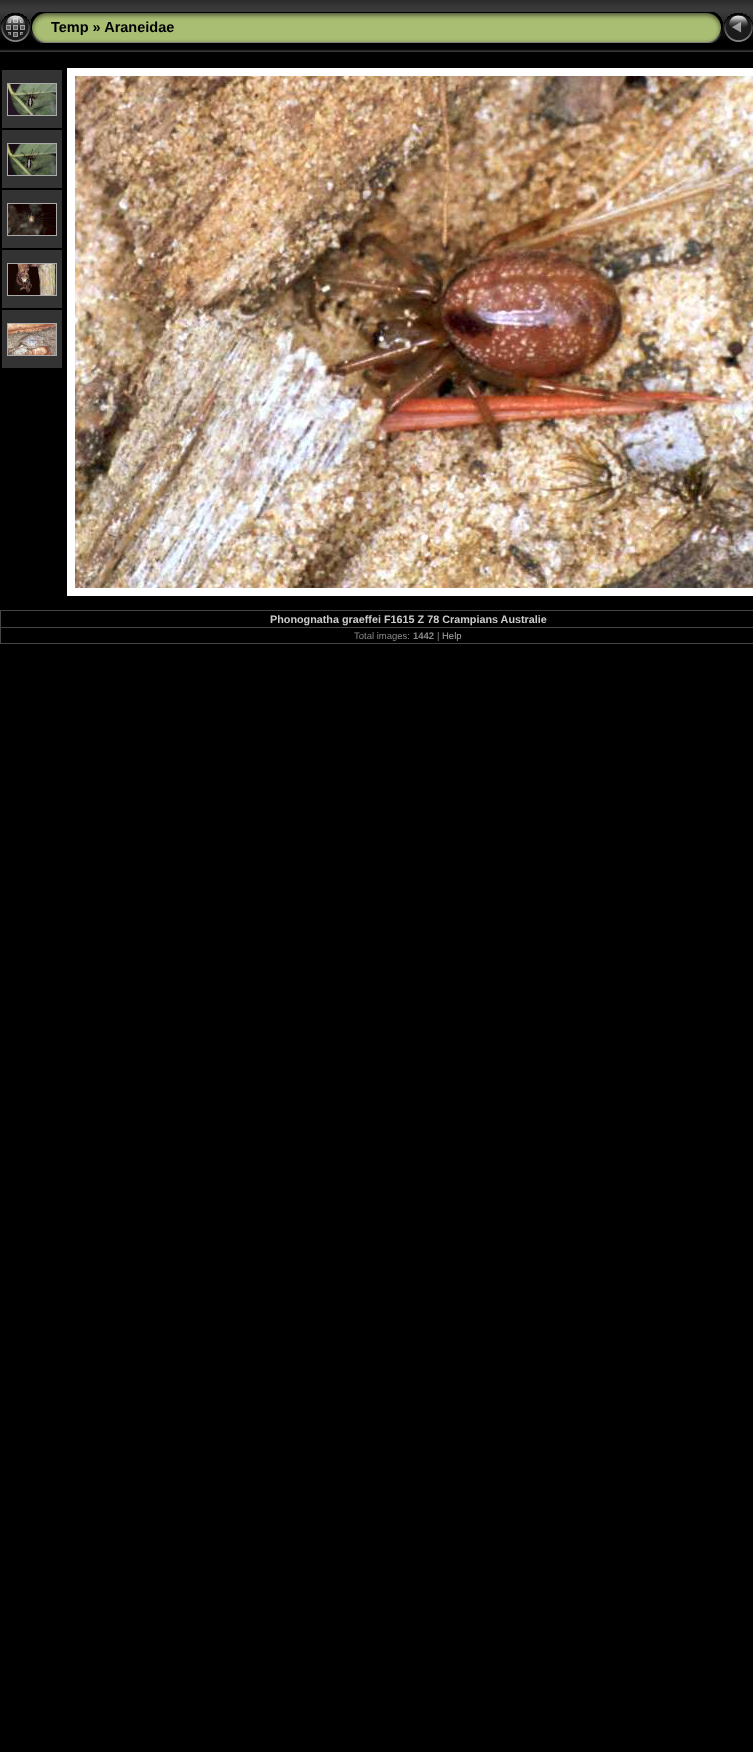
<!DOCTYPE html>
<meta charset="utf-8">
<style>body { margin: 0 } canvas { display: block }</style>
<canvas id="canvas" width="753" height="1752"></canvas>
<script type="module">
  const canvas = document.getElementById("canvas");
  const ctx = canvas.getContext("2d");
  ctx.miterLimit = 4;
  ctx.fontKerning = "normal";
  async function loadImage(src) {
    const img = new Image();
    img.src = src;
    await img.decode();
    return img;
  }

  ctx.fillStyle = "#000000";
  ctx.fillRect(0, 0, 753, 1752);
  ctx.drawImage(await loadImage("img1.png"), 0, 0, 753, 52);
  ctx.drawImage(await loadImage("img2.png"), 1, 13, 29, 29);
  ctx.drawImage(await loadImage("img3.png"), 31, 12, 20, 31);
  ctx.drawImage(await loadImage("img4.png"), 51, 12, 652, 31);
  ctx.font = "bold 14.5px Liberation Sans";
  ctx.fillText("Temp » Araneidae", 51, 32);
  ctx.drawImage(await loadImage("img5.png"), 703, 12, 20, 31);
  ctx.drawImage(await loadImage("img6.png"), 724, 13, 29, 29);
  ctx.fillStyle = "#333333";
  ctx.fillRect(2, 70, 60, 58);
  ctx.strokeStyle = "#aaaaaa";
  ctx.strokeRect(7.5, 83.5, 49, 32);
  ctx.drawImage(await loadImage("img7.png"), 8, 84, 48, 31);
  ctx.fillRect(2, 130, 60, 58);
  ctx.strokeRect(7.5, 143.5, 49, 32);
  ctx.drawImage(await loadImage("img8.png"), 8, 144, 48, 31);
  ctx.fillRect(2, 190, 60, 58);
  ctx.strokeRect(7.5, 203.5, 49, 32);
  ctx.drawImage(await loadImage("img9.png"), 8, 204, 48, 31);
  ctx.fillRect(2, 250, 60, 58);
  ctx.strokeRect(7.5, 263.5, 49, 32);
  ctx.drawImage(await loadImage("img10.png"), 8, 264, 48, 31);
  ctx.fillRect(2, 310, 60, 58);
  ctx.strokeRect(7.5, 323.5, 49, 32);
  ctx.drawImage(await loadImage("img11.png"), 8, 324, 48, 31);
  ctx.strokeStyle = "#ffffff";
  ctx.lineWidth = 8;
  ctx.strokeRect(71, 72, 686, 520);
  ctx.drawImage(await loadImage("img12.png"), 75, 76, 678, 512);
  ctx.fillStyle = "#444444";
  ctx.fillRect(0, 610, 753, 1);
  ctx.fillRect(0, 643, 753, 1);
  ctx.fillRect(0, 610, 1, 34);
  ctx.font = "bold 10.8px Liberation Sans";
  ctx.fillStyle = "#cccccc";
  ctx.fillText("Phonognatha graeffei F1615 Z 78 Crampians Australie", 270, 623);
  ctx.fillStyle = "#444444";
  ctx.fillRect(0, 627, 753, 1);
  ctx.font = "9.5px Liberation Sans";
  ctx.fillStyle = "#888888";
  ctx.fillText("Total images:", 354, 639);
  ctx.font = "bold 9.5px Liberation Sans";
  ctx.fillText("1442", 413, 639);
  ctx.font = "9.5px Liberation Sans";
  ctx.fillText("|", 437, 639);
  ctx.fillStyle = "#aaaaaa";
  ctx.fillText("Help", 442, 639);
</script>
